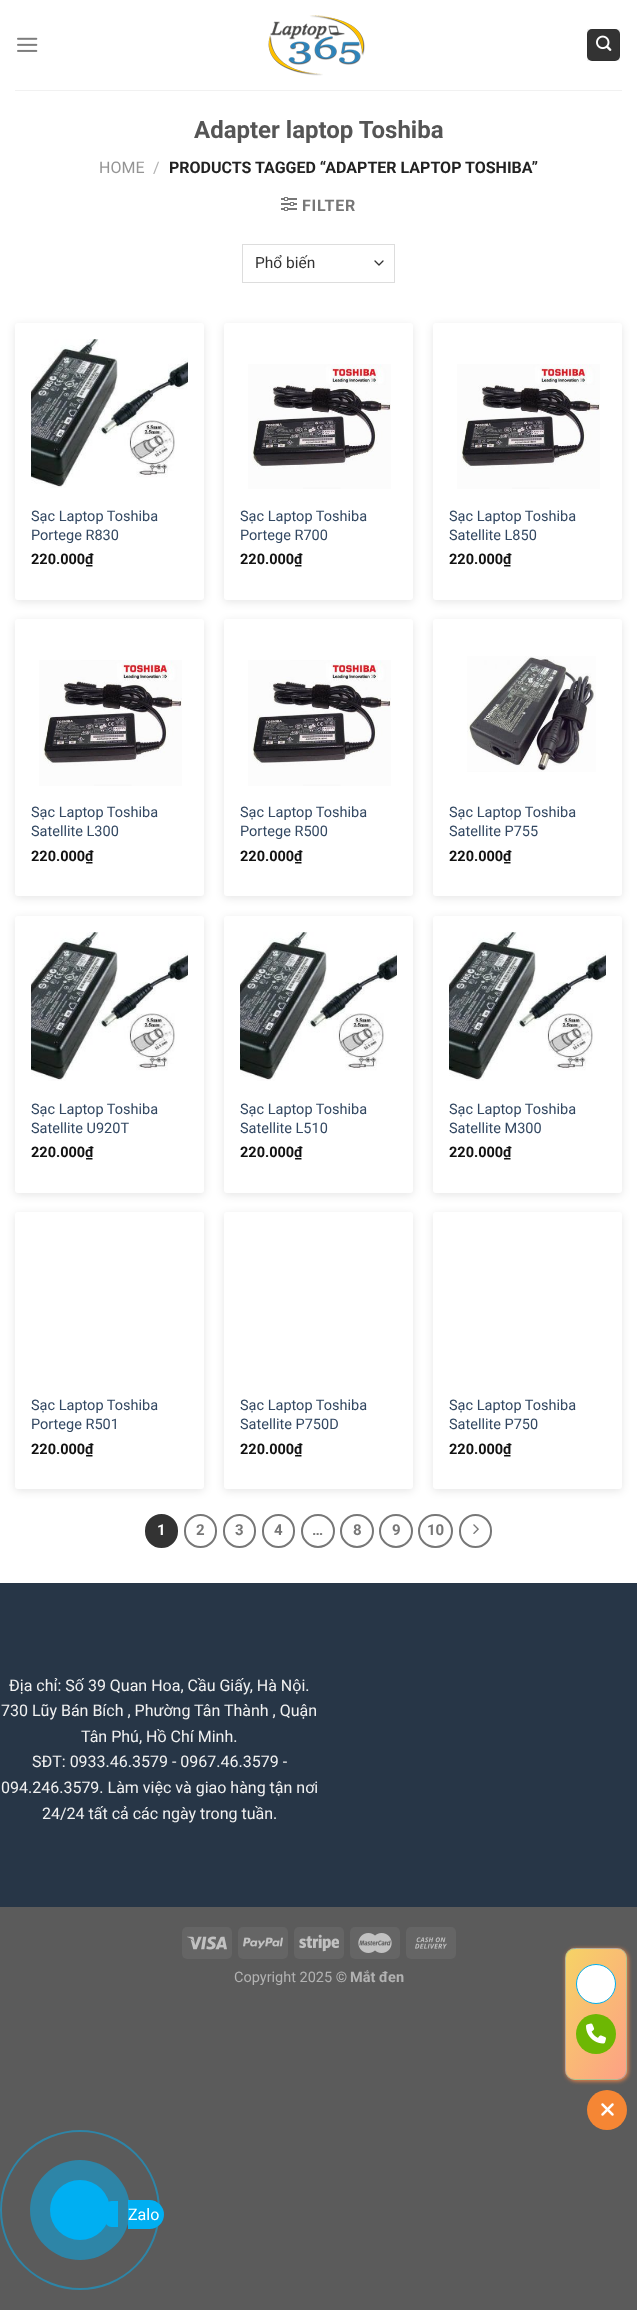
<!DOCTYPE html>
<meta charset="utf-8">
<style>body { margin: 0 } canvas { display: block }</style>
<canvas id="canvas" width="637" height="2310"></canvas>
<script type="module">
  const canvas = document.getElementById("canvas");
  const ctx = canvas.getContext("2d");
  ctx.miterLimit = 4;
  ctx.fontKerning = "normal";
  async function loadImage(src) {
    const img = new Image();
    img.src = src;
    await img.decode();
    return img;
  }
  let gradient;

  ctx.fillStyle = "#5b5b5b";
  ctx.fillRect(0, 0, 637, 2310);
  ctx.fillStyle = "#ffffff";
  ctx.fillRect(0, 0, 637, 1583);
  ctx.drawImage(await loadImage("img1.png"), 17, 37, 21, 15);
  ctx.drawImage(await loadImage("img2.png"), 268, 15, 97, 61);
  ctx.fillStyle = "#333333";
  ctx.beginPath();
  ctx.roundRect(587, 29, 33, 32, 5);
  ctx.fill();
  ctx.strokeStyle = "rgba(0, 0, 0, 0.05)";
  ctx.strokeRect(587.5, 29.5, 32, 31);
  ctx.drawImage(await loadImage("img3.png"), 596, 35, 16, 16);
  ctx.fillStyle = "#f1f1f1";
  ctx.fillRect(15, 90, 607, 1);
  ctx.font = "bold 24px Roboto";
  ctx.fillStyle = "#555555";
  ctx.fillText("Adapter laptop Toshiba", 194, 138);
  ctx.font = "16px Roboto";
  ctx.fillStyle = "#949494";
  ctx.fillText("HOME", 99, 173);
  ctx.fillStyle = "#b2b2b2";
  ctx.fillText("/", 153, 173);
  ctx.font = "bold 16px Roboto";
  ctx.fillStyle = "#222222";
  ctx.fillText("PRODUCTS TAGGED “ADAPTER LAPTOP TOSHIBA”", 169, 173);
  ctx.drawImage(await loadImage("img4.png"), 281, 197, 16, 14);
  ctx.letterSpacing = "0.75px";
  ctx.fillStyle = "#777777";
  ctx.fillText("FILTER", 302, 211);
  ctx.beginPath();
  ctx.moveTo(375, 261);
  ctx.lineTo(379, 265);
  ctx.lineTo(383, 261);
  ctx.strokeStyle = "#333333";
  ctx.lineWidth = 1.3;
  ctx.lineCap = "round";
  ctx.lineJoin = "round";
  ctx.stroke();
  ctx.strokeStyle = "#dddddd";
  ctx.lineWidth = 1;
  ctx.lineJoin = "miter";
  ctx.strokeRect(242.5, 244.5, 152, 38);
  ctx.letterSpacing = "0px";
  ctx.font = "15.5px Roboto";
  ctx.fillStyle = "#333333";
  ctx.fillText("Phổ biến", 255, 268);
  ctx.fillStyle = "rgba(0, 0, 0, 0.1)";
  ctx.filter = "blur(4px)";
  ctx.beginPath();
  ctx.roundRect(15, 325, 189, 277, 3);
  ctx.fill();
  ctx.filter = "none";
  ctx.fillStyle = "#ffffff";
  ctx.beginPath();
  ctx.roundRect(15, 323, 189, 277, 3);
  ctx.fill();
  ctx.drawImage(await loadImage("img5.png"), 31, 339, 157, 149);
  ctx.font = "14.5px Roboto";
  ctx.fillStyle = "#334862";
  ctx.fillText("Sạc Laptop Toshiba", 31, 521);
  ctx.fillText("Portege R830", 31, 540);
  ctx.font = "bold 14.5px Roboto";
  ctx.fillStyle = "#111111";
  ctx.fillText("220.000₫", 31, 564);
  ctx.fillStyle = "rgba(0, 0, 0, 0.1)";
  ctx.filter = "blur(4px)";
  ctx.beginPath();
  ctx.roundRect(224, 325, 189, 277, 3);
  ctx.fill();
  ctx.filter = "none";
  ctx.fillStyle = "#ffffff";
  ctx.beginPath();
  ctx.roundRect(224, 323, 189, 277, 3);
  ctx.fill();
  ctx.drawImage(await loadImage("img6.png"), 248, 364, 143, 125);
  ctx.font = "14.5px Roboto";
  ctx.fillStyle = "#334862";
  ctx.fillText("Sạc Laptop Toshiba", 240, 521);
  ctx.fillText("Portege R700", 240, 540);
  ctx.font = "bold 14.5px Roboto";
  ctx.fillStyle = "#111111";
  ctx.fillText("220.000₫", 240, 564);
  ctx.fillStyle = "rgba(0, 0, 0, 0.1)";
  ctx.filter = "blur(4px)";
  ctx.beginPath();
  ctx.roundRect(433, 325, 189, 277, 3);
  ctx.fill();
  ctx.filter = "none";
  ctx.fillStyle = "#ffffff";
  ctx.beginPath();
  ctx.roundRect(433, 323, 189, 277, 3);
  ctx.fill();
  ctx.drawImage(await loadImage("img6.png"), 457, 364, 143, 125);
  ctx.font = "14.5px Roboto";
  ctx.fillStyle = "#334862";
  ctx.fillText("Sạc Laptop Toshiba", 449, 521);
  ctx.fillText("Satellite L850", 449, 540);
  ctx.font = "bold 14.5px Roboto";
  ctx.fillStyle = "#111111";
  ctx.fillText("220.000₫", 449, 564);
  ctx.fillStyle = "rgba(0, 0, 0, 0.1)";
  ctx.filter = "blur(4px)";
  ctx.beginPath();
  ctx.roundRect(15, 621, 189, 277, 3);
  ctx.fill();
  ctx.filter = "none";
  ctx.fillStyle = "#ffffff";
  ctx.beginPath();
  ctx.roundRect(15, 619, 189, 277, 3);
  ctx.fill();
  ctx.drawImage(await loadImage("img7.png"), 39, 660, 143, 126);
  ctx.font = "14.5px Roboto";
  ctx.fillStyle = "#334862";
  ctx.fillText("Sạc Laptop Toshiba", 31, 817);
  ctx.fillText("Satellite L300", 31, 836);
  ctx.font = "bold 14.5px Roboto";
  ctx.fillStyle = "#111111";
  ctx.fillText("220.000₫", 31, 861);
  ctx.fillStyle = "rgba(0, 0, 0, 0.1)";
  ctx.filter = "blur(4px)";
  ctx.beginPath();
  ctx.roundRect(224, 621, 189, 277, 3);
  ctx.fill();
  ctx.filter = "none";
  ctx.fillStyle = "#ffffff";
  ctx.beginPath();
  ctx.roundRect(224, 619, 189, 277, 3);
  ctx.fill();
  ctx.drawImage(await loadImage("img7.png"), 248, 660, 143, 126);
  ctx.font = "14.5px Roboto";
  ctx.fillStyle = "#334862";
  ctx.fillText("Sạc Laptop Toshiba", 240, 817);
  ctx.fillText("Portege R500", 240, 836);
  ctx.font = "bold 14.5px Roboto";
  ctx.fillStyle = "#111111";
  ctx.fillText("220.000₫", 240, 861);
  ctx.fillStyle = "rgba(0, 0, 0, 0.1)";
  ctx.filter = "blur(4px)";
  ctx.beginPath();
  ctx.roundRect(433, 621, 189, 277, 3);
  ctx.fill();
  ctx.filter = "none";
  ctx.fillStyle = "#ffffff";
  ctx.beginPath();
  ctx.roundRect(433, 619, 189, 277, 3);
  ctx.fill();
  ctx.drawImage(await loadImage("img8.png"), 467, 656, 129, 116);
  ctx.font = "14.5px Roboto";
  ctx.fillStyle = "#334862";
  ctx.fillText("Sạc Laptop Toshiba", 449, 817);
  ctx.fillText("Satellite P755", 449, 836);
  ctx.font = "bold 14.5px Roboto";
  ctx.fillStyle = "#111111";
  ctx.fillText("220.000₫", 449, 861);
  ctx.fillStyle = "rgba(0, 0, 0, 0.1)";
  ctx.filter = "blur(4px)";
  ctx.beginPath();
  ctx.roundRect(15, 918, 189, 277, 3);
  ctx.fill();
  ctx.filter = "none";
  ctx.fillStyle = "#ffffff";
  ctx.beginPath();
  ctx.roundRect(15, 916, 189, 277, 3);
  ctx.fill();
  ctx.drawImage(await loadImage("img5.png"), 31, 932, 157, 149);
  ctx.font = "14.5px Roboto";
  ctx.fillStyle = "#334862";
  ctx.fillText("Sạc Laptop Toshiba", 31, 1114);
  ctx.fillText("Satellite U920T", 31, 1133);
  ctx.font = "bold 14.5px Roboto";
  ctx.fillStyle = "#111111";
  ctx.fillText("220.000₫", 31, 1157);
  ctx.fillStyle = "rgba(0, 0, 0, 0.1)";
  ctx.filter = "blur(4px)";
  ctx.beginPath();
  ctx.roundRect(224, 918, 189, 277, 3);
  ctx.fill();
  ctx.filter = "none";
  ctx.fillStyle = "#ffffff";
  ctx.beginPath();
  ctx.roundRect(224, 916, 189, 277, 3);
  ctx.fill();
  ctx.drawImage(await loadImage("img5.png"), 240, 932, 157, 149);
  ctx.font = "14.5px Roboto";
  ctx.fillStyle = "#334862";
  ctx.fillText("Sạc Laptop Toshiba", 240, 1114);
  ctx.fillText("Satellite L510", 240, 1133);
  ctx.font = "bold 14.5px Roboto";
  ctx.fillStyle = "#111111";
  ctx.fillText("220.000₫", 240, 1157);
  ctx.fillStyle = "rgba(0, 0, 0, 0.1)";
  ctx.filter = "blur(4px)";
  ctx.beginPath();
  ctx.roundRect(433, 918, 189, 277, 3);
  ctx.fill();
  ctx.filter = "none";
  ctx.fillStyle = "#ffffff";
  ctx.beginPath();
  ctx.roundRect(433, 916, 189, 277, 3);
  ctx.fill();
  ctx.drawImage(await loadImage("img5.png"), 449, 932, 157, 149);
  ctx.font = "14.5px Roboto";
  ctx.fillStyle = "#334862";
  ctx.fillText("Sạc Laptop Toshiba", 449, 1114);
  ctx.fillText("Satellite M300", 449, 1133);
  ctx.font = "bold 14.5px Roboto";
  ctx.fillStyle = "#111111";
  ctx.fillText("220.000₫", 449, 1157);
  ctx.fillStyle = "rgba(0, 0, 0, 0.1)";
  ctx.filter = "blur(4px)";
  ctx.beginPath();
  ctx.roundRect(15, 1214, 189, 277, 3);
  ctx.fill();
  ctx.filter = "none";
  ctx.fillStyle = "#ffffff";
  ctx.beginPath();
  ctx.roundRect(15, 1212, 189, 277, 3);
  ctx.fill();
  ctx.font = "14.5px Roboto";
  ctx.fillStyle = "#334862";
  ctx.fillText("Sạc Laptop Toshiba", 31, 1410);
  ctx.fillText("Portege R501", 31, 1429);
  ctx.font = "bold 14.5px Roboto";
  ctx.fillStyle = "#111111";
  ctx.fillText("220.000₫", 31, 1454);
  ctx.fillStyle = "rgba(0, 0, 0, 0.1)";
  ctx.filter = "blur(4px)";
  ctx.beginPath();
  ctx.roundRect(224, 1214, 189, 277, 3);
  ctx.fill();
  ctx.filter = "none";
  ctx.fillStyle = "#ffffff";
  ctx.beginPath();
  ctx.roundRect(224, 1212, 189, 277, 3);
  ctx.fill();
  ctx.font = "14.5px Roboto";
  ctx.fillStyle = "#334862";
  ctx.fillText("Sạc Laptop Toshiba", 240, 1410);
  ctx.fillText("Satellite P750D", 240, 1429);
  ctx.font = "bold 14.5px Roboto";
  ctx.fillStyle = "#111111";
  ctx.fillText("220.000₫", 240, 1454);
  ctx.fillStyle = "rgba(0, 0, 0, 0.1)";
  ctx.filter = "blur(4px)";
  ctx.beginPath();
  ctx.roundRect(433, 1214, 189, 277, 3);
  ctx.fill();
  ctx.filter = "none";
  ctx.fillStyle = "#ffffff";
  ctx.beginPath();
  ctx.roundRect(433, 1212, 189, 277, 3);
  ctx.fill();
  ctx.font = "14.5px Roboto";
  ctx.fillStyle = "#334862";
  ctx.fillText("Sạc Laptop Toshiba", 449, 1410);
  ctx.fillText("Satellite P750", 449, 1429);
  ctx.font = "bold 14.5px Roboto";
  ctx.fillStyle = "#111111";
  ctx.fillText("220.000₫", 449, 1454);
  ctx.fillStyle = "#333333";
  ctx.beginPath();
  ctx.roundRect(146, 1515, 31, 32, 15.5);
  ctx.fill();
  ctx.strokeStyle = "#333333";
  ctx.lineWidth = 2;
  ctx.stroke();
  ctx.font = "bold 15px Roboto";
  ctx.fillStyle = "#ffffff";
  ctx.fillText("1", 157, 1535);
  ctx.beginPath();
  ctx.roundRect(185, 1515, 31, 32, 15.5);
  ctx.strokeStyle = "#777777";
  ctx.stroke();
  ctx.fillStyle = "#777777";
  ctx.fillText("2", 196, 1535);
  ctx.beginPath();
  ctx.roundRect(224, 1515, 31, 32, 15.5);
  ctx.stroke();
  ctx.fillText("3", 235, 1535);
  ctx.beginPath();
  ctx.roundRect(263, 1515, 31, 32, 15.5);
  ctx.stroke();
  ctx.fillText("4", 274, 1535);
  ctx.beginPath();
  ctx.arc(318, 1531, 16, 0, Math.PI * 2);
  ctx.stroke();
  ctx.fillText("…", 312, 1535);
  ctx.beginPath();
  ctx.arc(357, 1531, 16, 0, Math.PI * 2);
  ctx.stroke();
  ctx.fillText("8", 353, 1535);
  ctx.beginPath();
  ctx.arc(396, 1531, 16, 0, Math.PI * 2);
  ctx.stroke();
  ctx.fillText("9", 392, 1535);
  ctx.beginPath();
  ctx.roundRect(419, 1515, 33, 32, 16);
  ctx.stroke();
  ctx.fillText("10", 427, 1535);
  ctx.beginPath();
  ctx.roundRect(460, 1515, 31, 32, 15.5);
  ctx.stroke();
  ctx.drawImage(await loadImage("img9.png"), 473, 1524, 6, 10);
  ctx.fillStyle = "#273647";
  ctx.fillRect(0, 1583, 637, 324);
  ctx.font = "16px Roboto";
  ctx.fillStyle = "#f1f1f1";
  ctx.fillText("Địa chỉ: Số 39 Quan Hoa, Cầu Giấy, Hà Nội.", 9, 1691);
  ctx.fillText("730 Lũy Bán Bích , Phường Tân Thành , Quận", 1, 1716);
  ctx.fillText("Tân Phú, Hồ Chí Minh.", 81, 1742);
  ctx.fillText("SĐT: 0933.46.3579 - 0967.46.3579 -", 32, 1767);
  ctx.fillText("094.246.3579. Làm việc và giao hàng tận nơi", 1, 1793);
  ctx.fillText("24/24 tất cả các ngày trong tuần.", 42, 1819);
  ctx.fillStyle = "#656565";
  ctx.beginPath();
  ctx.roundRect(182, 1927, 50, 32, 5);
  ctx.fill();
  ctx.drawImage(await loadImage("img10.png"), 187, 1936, 40, 14);
  ctx.beginPath();
  ctx.roundRect(238, 1927, 50, 32, 5);
  ctx.fill();
  ctx.drawImage(await loadImage("img11.png"), 243, 1937, 40, 12);
  ctx.beginPath();
  ctx.roundRect(294, 1927, 50, 32, 5);
  ctx.fill();
  ctx.drawImage(await loadImage("img12.png"), 299, 1934, 40, 18);
  ctx.beginPath();
  ctx.roundRect(350, 1927, 50, 32, 5);
  ctx.fill();
  ctx.drawImage(await loadImage("img13.png"), 358, 1933, 34, 20);
  ctx.beginPath();
  ctx.roundRect(406, 1927, 50, 32, 5);
  ctx.fill();
  ctx.drawImage(await loadImage("img14.png"), 415, 1937, 32, 12);
  ctx.font = "14.5px Roboto";
  ctx.fillStyle = "#b2b2b2";
  ctx.fillText("Copyright 2025 ©", 234, 1982);
  ctx.font = "bold 14.5px Roboto";
  ctx.fillText("Mắt đen", 350, 1982);
  ctx.fillStyle = "#fb8543";
  ctx.filter = "blur(2px)";
  ctx.beginPath();
  ctx.roundRect(566, 1949, 62, 132, 10);
  ctx.fill();
  ctx.filter = "none";
  ctx.save();
  ctx.beginPath();
  ctx.roundRect(565, 1948, 62, 132, 10);
  ctx.clip();
  gradient = ctx.createLinearGradient(545, 1855, 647, 1913);
  gradient.addColorStop(0, "#f6d365");
  gradient.addColorStop(1, "#fda085");
  ctx.fillStyle = gradient;
  ctx.fillRect(566, 1948, 60, 1);
  gradient = ctx.createLinearGradient(485, 1985, 587, 2043);
  gradient.addColorStop(0, "#f6d365");
  gradient.addColorStop(1, "#fda085");
  ctx.fillStyle = gradient;
  ctx.fillRect(565, 1949, 1, 130);
  gradient = ctx.createLinearGradient(545, 1985, 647, 2043);
  gradient.addColorStop(0, "#f6d365");
  gradient.addColorStop(1, "#fda085");
  ctx.fillStyle = gradient;
  ctx.fillRect(566, 1949, 60, 130);
  gradient = ctx.createLinearGradient(605, 1985, 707, 2043);
  gradient.addColorStop(0, "#f6d365");
  gradient.addColorStop(1, "#fda085");
  ctx.fillStyle = gradient;
  ctx.fillRect(626, 1949, 1, 130);
  gradient = ctx.createLinearGradient(545, 2115, 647, 2173);
  gradient.addColorStop(0, "#f6d365");
  gradient.addColorStop(1, "#fda085");
  ctx.fillStyle = gradient;
  ctx.fillRect(566, 2079, 60, 1);
  ctx.restore();
  ctx.beginPath();
  ctx.roundRect(565.5, 1948.5, 61, 131, 9.5);
  ctx.strokeStyle = "rgba(0, 175, 238, 0.29)";
  ctx.lineWidth = 1;
  ctx.stroke();
  ctx.fillStyle = "#ffffff";
  ctx.beginPath();
  ctx.arc(596, 1984, 19.5, 0, Math.PI * 2);
  ctx.fill();
  ctx.strokeStyle = "#00afee";
  ctx.stroke();
  ctx.fillStyle = "#6db703";
  ctx.beginPath();
  ctx.arc(596, 2034, 20, 0, Math.PI * 2);
  ctx.fill();
  ctx.drawImage(await loadImage("img15.png"), 586, 2023, 20, 21);
  ctx.fillStyle = "#f58634";
  ctx.beginPath();
  ctx.arc(607, 2110, 20, 0, Math.PI * 2);
  ctx.fill();
  ctx.drawImage(await loadImage("img16.png"), 601, 2103, 13, 13);
  ctx.beginPath();
  ctx.arc(80, 2210, 79, 0, Math.PI * 2);
  ctx.strokeStyle = "#2e85a7";
  ctx.lineWidth = 2;
  ctx.stroke();
  ctx.fillStyle = "#2e85a7";
  ctx.beginPath();
  ctx.arc(80, 2210, 50, 0, Math.PI * 2);
  ctx.fill();
  ctx.fillStyle = "#00aff2";
  ctx.beginPath();
  ctx.arc(80, 2210, 30, 0, Math.PI * 2);
  ctx.fill();
  ctx.beginPath();
  ctx.roundRect(128, 2200, 36, 29, [0, 14.5, 14.5, 0]);
  ctx.fill();
  ctx.font = "16px Roboto";
  ctx.fillStyle = "#ffffff";
  ctx.fillText("Zalo", 128, 2220);
  ctx.fillStyle = "#00aff2";
  ctx.beginPath();
  ctx.roundRect(105, 2201, 13, 26, [6.5, 0, 0, 6.5]);
  ctx.fill();
</script>
